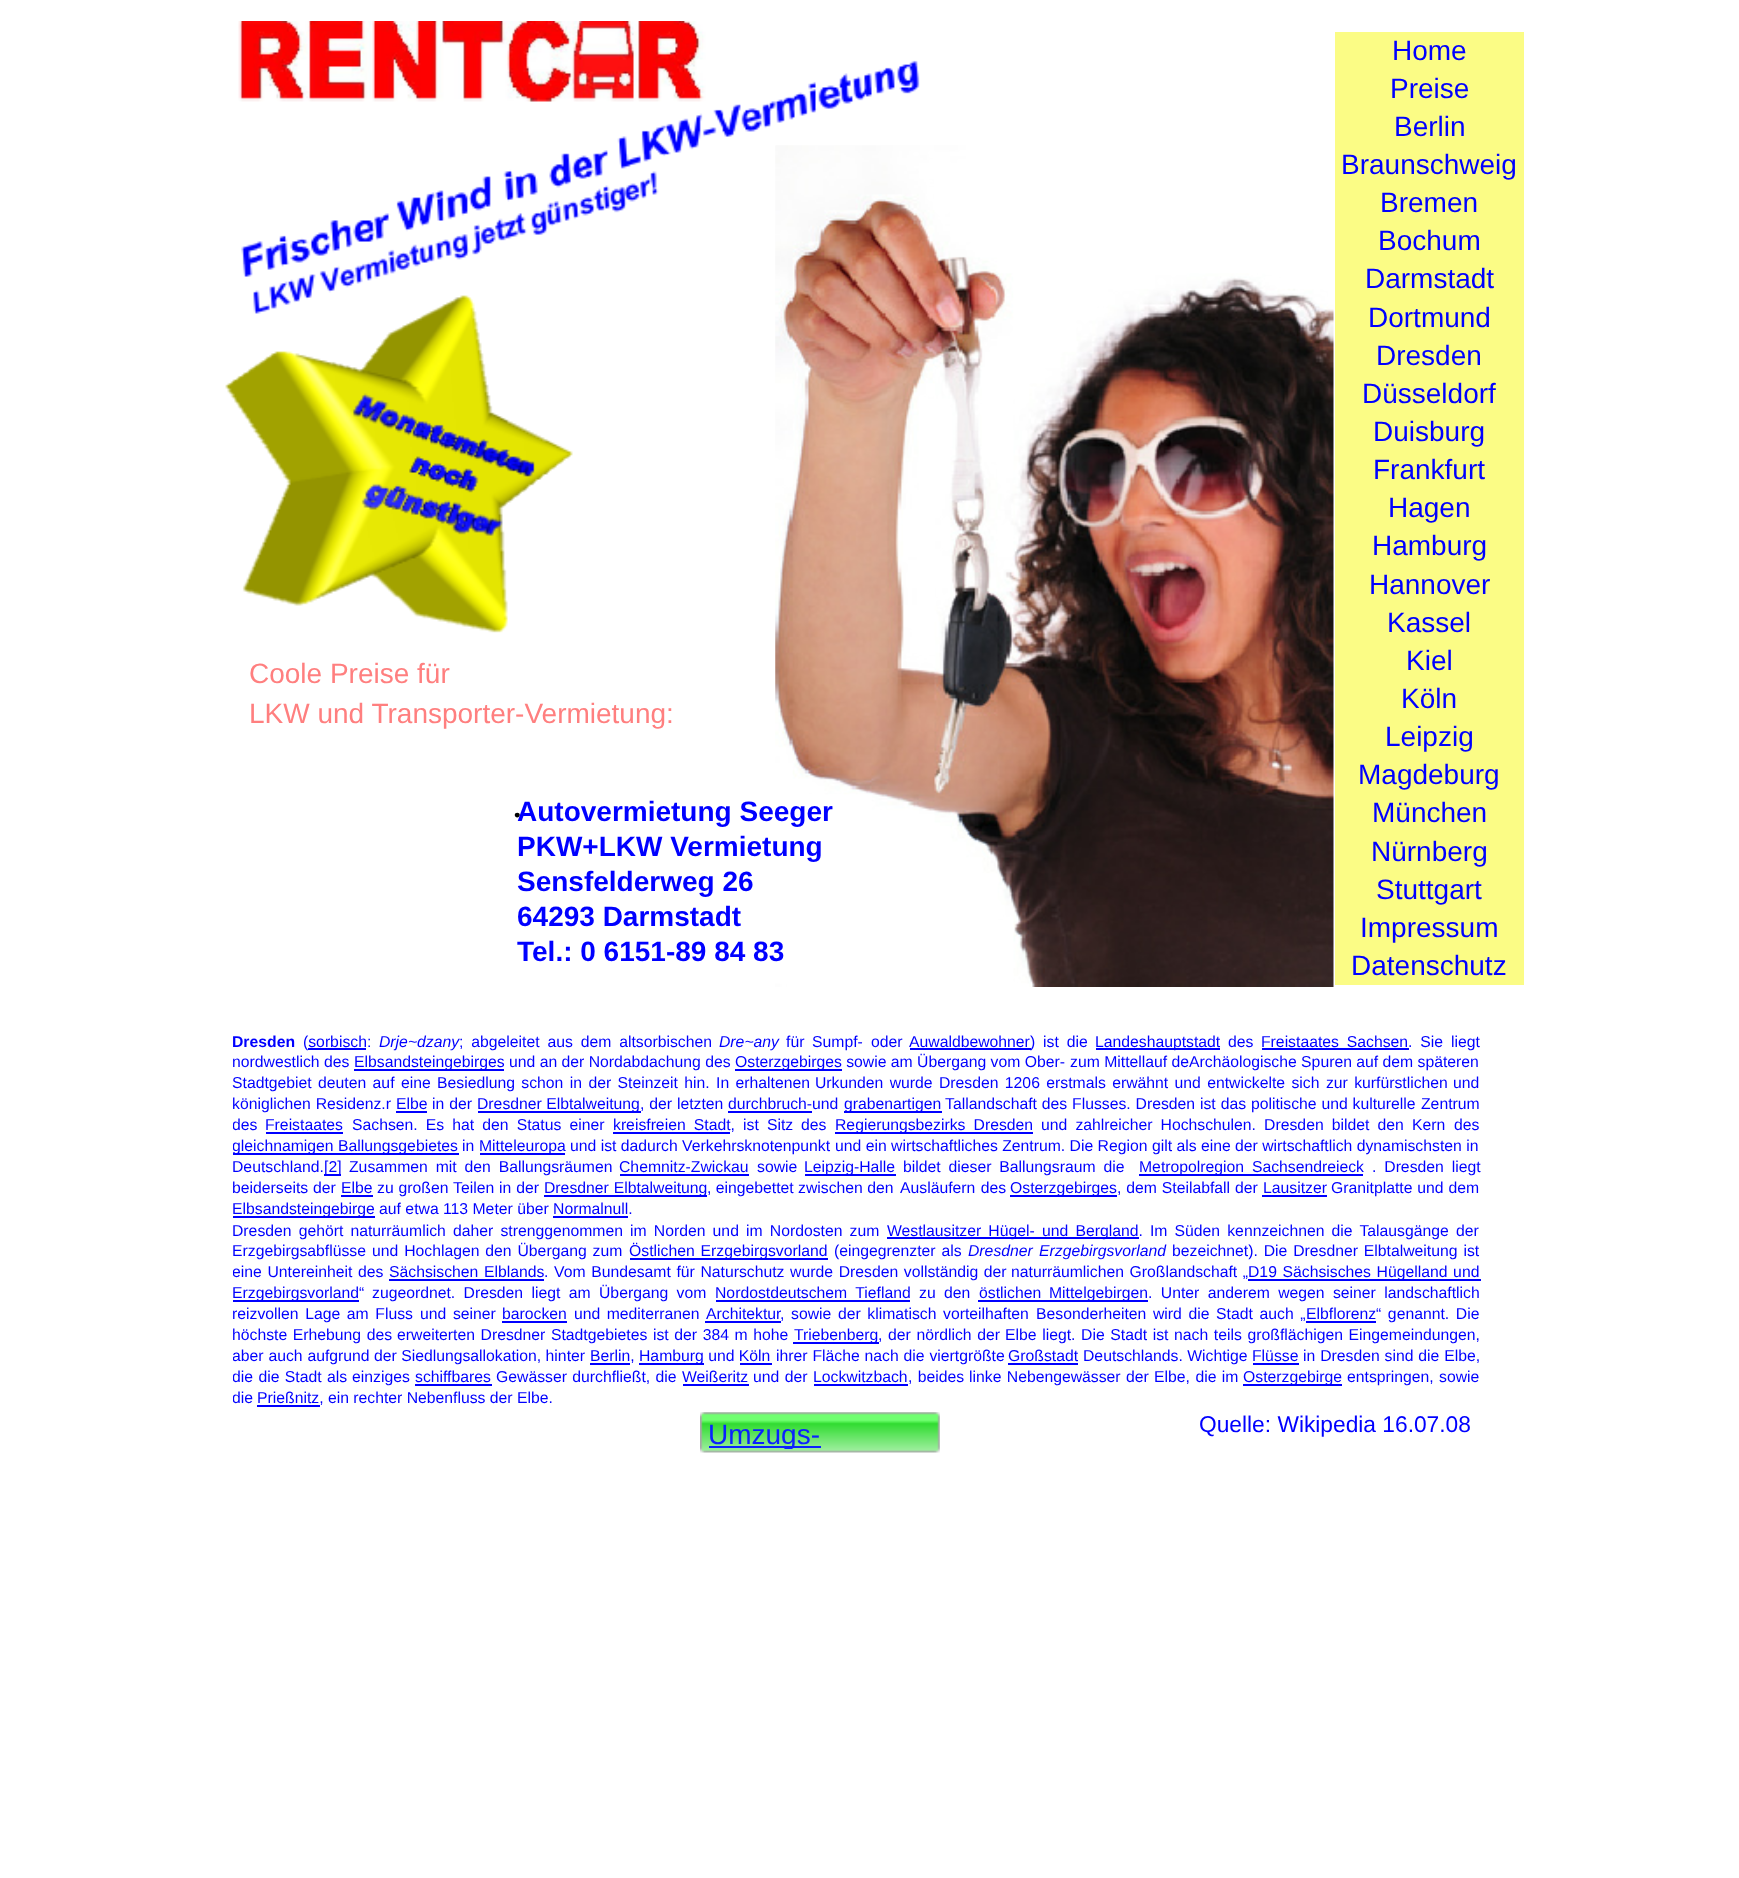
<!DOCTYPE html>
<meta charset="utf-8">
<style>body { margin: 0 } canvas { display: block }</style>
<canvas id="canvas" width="1739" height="1878"></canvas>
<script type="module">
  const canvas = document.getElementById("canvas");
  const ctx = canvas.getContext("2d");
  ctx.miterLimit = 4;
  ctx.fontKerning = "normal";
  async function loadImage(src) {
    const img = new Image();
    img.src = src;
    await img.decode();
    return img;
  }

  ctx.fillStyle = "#ffffff";
  ctx.fillRect(0, 0, 1739, 1878);
  ctx.drawImage(await loadImage("img1.png"), 238, 21, 682, 256);
  ctx.drawImage(await loadImage("img2.png"), 775, 145, 559, 842);
  ctx.fillStyle = "#fbfc85";
  ctx.fillRect(1335, 32, 189, 953);
  ctx.font = "28px Liberation Sans";
  ctx.fillStyle = "#0000ff";
  ctx.fillText("Home", 1392, 60);
  ctx.fillText("Preise", 1390, 98);
  ctx.fillText("Berlin", 1394, 136);
  ctx.fillText("Braunschweig", 1341, 174);
  ctx.fillText("Bremen", 1380, 212);
  ctx.fillText("Bochum", 1378, 250);
  ctx.fillText("Darmstadt", 1365, 288);
  ctx.fillText("Dortmund", 1368, 327);
  ctx.fillText("Dresden", 1376, 365);
  ctx.fillText("Düsseldorf", 1362, 403);
  ctx.fillText("Duisburg", 1373, 441);
  ctx.fillText("Frankfurt", 1373, 479);
  ctx.fillText("Hagen", 1388, 517);
  ctx.fillText("Hamburg", 1372, 555);
  ctx.fillText("Hannover", 1369, 594);
  ctx.fillText("Kassel", 1387, 632);
  ctx.fillText("Kiel", 1406, 670);
  ctx.fillText("Köln", 1401, 708);
  ctx.fillText("Leipzig", 1385, 746);
  ctx.fillText("Magdeburg", 1358, 784);
  ctx.fillText("München", 1372, 822);
  ctx.fillText("Nürnberg", 1371, 861);
  ctx.fillText("Stuttgart", 1376, 899);
  ctx.fillText("Impressum", 1360, 937);
  ctx.fillText("Datenschutz", 1351, 975);
  ctx.drawImage(await loadImage("img3.png"), 253, 171, 406, 143);
  ctx.drawImage(await loadImage("img4.png"), 225, 295, 348, 338);
  ctx.fillStyle = "#ff7f7f";
  ctx.fillText("Coole Preise für", 249, 683);
  ctx.fillText("LKW und Transporter-Vermietung:", 249, 723);
  ctx.font = "42px Liberation Serif";
  ctx.fillStyle = "#000000";
  ctx.fillText(".", 512, 817);
  ctx.font = "bold 28px Liberation Sans";
  ctx.fillStyle = "#0000ff";
  ctx.fillText("Autovermietung Seeger", 517, 821);
  ctx.fillText("PKW+LKW Vermietung", 517, 856);
  ctx.fillText("Sensfelderweg 26", 517, 891);
  ctx.fillText("64293 Darmstadt", 517, 926);
  ctx.fillText("Tel.: 0 6151-89 84 83", 517, 961);
  ctx.save();
  ctx.beginPath();
  ctx.rect(233, 1033, 1248, 189);
  ctx.clip();
  ctx.font = "bold 15.75px Liberation Sans";
  ctx.fillText("Dresden", 232, 1047);
  ctx.restore();
  ctx.font = "15.75px Liberation Sans";
  ctx.fillText("(sorbisch:", 303, 1047);
  ctx.fillRect(308, 1048, 58, 2);
  ctx.font = "italic 15.75px Liberation Sans";
  ctx.fillText("Drje~dzany", 379, 1047);
  ctx.wordSpacing = "3.5px";
  ctx.font = "15.75px Liberation Sans";
  ctx.fillText("; abgeleitet aus dem altsorbischen", 459, 1047);
  ctx.wordSpacing = "0px";
  ctx.font = "italic 15.75px Liberation Sans";
  ctx.fillText("Dre~any", 719, 1047);
  ctx.font = "15.75px Liberation Sans";
  ctx.fillText("für", 786, 1047);
  ctx.fillText("Sumpf-", 812, 1047);
  ctx.fillText("oder", 871, 1047);
  ctx.fillText("Auwaldbewohner", 909, 1047);
  ctx.fillRect(910, 1048, 121, 2);
  ctx.wordSpacing = "3.5px";
  ctx.fillText(") ist die", 1030, 1047);
  ctx.fillRect(1096, 1048, 124, 2);
  ctx.wordSpacing = "0px";
  ctx.fillText("Landeshauptstadt", 1095, 1047);
  ctx.fillText("des", 1228, 1047);
  ctx.wordSpacing = "3.5px";
  ctx.fillText("Freistaates Sachsen. Sie", 1261, 1047);
  ctx.fillRect(1262, 1048, 147, 2);
  ctx.wordSpacing = "0px";
  ctx.fillText("liegt", 1451, 1047);
  ctx.fillText("nordwestlich des", 232, 1067);
  ctx.fillRect(354, 1069, 150, 2);
  ctx.fillText("Elbsandsteingebirges und an der Nordabdachung des", 354, 1067);
  ctx.fillRect(735, 1069, 107, 2);
  ctx.fillText("Osterzgebirges sowie am Übergang vom Ober-", 735, 1067);
  ctx.fillText("zum Mittellauf deArchäologische Spuren auf dem späteren", 1070, 1067);
  ctx.wordSpacing = "2px";
  ctx.fillText("Stadtgebiet deuten auf eine Besiedlung schon in der Steinzeit hin. In erhaltenen", 232, 1088);
  ctx.fillText("Urkunden wurde Dresden 1206 erstmals erwähnt und entwickelte sich zur kurfürstlichen", 815, 1088);
  ctx.wordSpacing = "0px";
  ctx.fillText("und", 1453, 1088);
  ctx.save();
  ctx.beginPath();
  ctx.rect(233, 1033, 1248, 189);
  ctx.clip();
  ctx.wordSpacing = "0.5px";
  ctx.fillText("königlichen Residenz.r", 232, 1109);
  ctx.restore();
  ctx.fillText("Elbe", 396, 1109);
  ctx.fillRect(396, 1111, 31, 2);
  ctx.wordSpacing = "0.5px";
  ctx.fillText("in der", 432, 1109);
  ctx.fillRect(478, 1111, 163, 2);
  ctx.wordSpacing = "0px";
  ctx.fillText("Dresdner Elbtalweitung", 477, 1109);
  ctx.wordSpacing = "0.5px";
  ctx.fillText(", der letzten", 640, 1109);
  ctx.wordSpacing = "0px";
  ctx.fillText("durchbruch-und", 728, 1109);
  ctx.fillRect(728, 1111, 84, 2);
  ctx.fillRect(844, 1111, 98, 2);
  ctx.fillText("grabenartigen", 844, 1109);
  ctx.wordSpacing = "0.5px";
  ctx.fillText("Tallandschaft des Flusses. Dresden ist das politische und kulturelle", 945, 1109);
  ctx.wordSpacing = "0px";
  ctx.fillText("Zentrum", 1421, 1109);
  ctx.save();
  ctx.beginPath();
  ctx.rect(233, 1033, 1248, 189);
  ctx.clip();
  ctx.fillText("des", 232, 1130);
  ctx.restore();
  ctx.fillText("Freistaates", 265, 1130);
  ctx.fillRect(266, 1132, 77, 2);
  ctx.wordSpacing = "3.75px";
  ctx.fillText("Sachsen. Es hat den Status einer", 352, 1130);
  ctx.fillText("kreisfreien Stadt, ist Sitz", 613, 1130);
  ctx.fillRect(613, 1132, 117, 2);
  ctx.wordSpacing = "0px";
  ctx.fillText("des", 801, 1130);
  ctx.fillRect(835, 1132, 198, 2);
  ctx.wordSpacing = "3.75px";
  ctx.fillText("Regierungsbezirks Dresden", 835, 1130);
  ctx.fillText("und zahlreicher Hochschulen. Dresden bildet den Kern", 1041, 1130);
  ctx.wordSpacing = "0px";
  ctx.fillText("des", 1454, 1130);
  ctx.fillRect(233, 1153, 226, 2);
  ctx.save();
  ctx.beginPath();
  ctx.rect(233, 1033, 1248, 189);
  ctx.clip();
  ctx.fillText("gleichnamigen Ballungsgebietes", 232, 1151);
  ctx.restore();
  ctx.fillText("in", 462, 1151);
  ctx.fillRect(480, 1153, 85, 2);
  ctx.fillText("Mitteleuropa und ist dadurch Verkehrsknotenpunkt", 479, 1151);
  ctx.fillText("und ein wirtschaftliches Zentrum. Die Region gilt als eine der wirtschaftlich dynamischsten in", 835, 1151);
  ctx.fillText("Deutschland.", 232, 1172);
  ctx.fillRect(324, 1174, 17, 2);
  ctx.fillText("[2]", 324, 1172);
  ctx.wordSpacing = "3.5px";
  ctx.fillText("Zusammen mit den Ballungsräumen", 349, 1172);
  ctx.wordSpacing = "0px";
  ctx.fillText("Chemnitz-Zwickau", 619, 1172);
  ctx.fillRect(620, 1174, 129, 2);
  ctx.fillText("sowie", 757, 1172);
  ctx.fillRect(805, 1174, 91, 2);
  ctx.fillText("Leipzig-Halle", 804, 1172);
  ctx.wordSpacing = "3.5px";
  ctx.fillText("bildet dieser Ballungsraum die", 903, 1172);
  ctx.fillRect(1139, 1174, 224, 2);
  ctx.fillText("Metropolregion Sachsendreieck", 1139, 1172);
  ctx.fillText(". Dresden liegt", 1372, 1172);
  ctx.save();
  ctx.beginPath();
  ctx.rect(233, 1033, 1248, 189);
  ctx.clip();
  ctx.wordSpacing = "0px";
  ctx.fillText("beiderseits", 232, 1193);
  ctx.restore();
  ctx.wordSpacing = "0px";
  ctx.fillText("der", 313, 1193);
  ctx.fillText("Elbe", 341, 1193);
  ctx.fillRect(341, 1195, 32, 2);
  ctx.wordSpacing = "0.5px";
  ctx.fillText("zu großen Teilen in der", 377, 1193);
  ctx.fillRect(544, 1195, 163, 2);
  ctx.fillText("Dresdner Elbtalweitung", 544, 1193);
  ctx.wordSpacing = "0px";
  ctx.fillText(", eingebettet zwischen den", 707, 1193);
  ctx.wordSpacing = "1px";
  ctx.fillText("Ausläufern des", 900, 1193);
  ctx.fillRect(1010, 1195, 107, 2);
  ctx.wordSpacing = "0px";
  ctx.fillText("Osterzgebirges", 1010, 1193);
  ctx.wordSpacing = "0.5px";
  ctx.fillText(", dem Steilabfall der", 1117, 1193);
  ctx.wordSpacing = "0px";
  ctx.fillText("Lausitzer", 1263, 1193);
  ctx.fillRect(1262, 1195, 65, 2);
  ctx.wordSpacing = "0.5px";
  ctx.fillText("Granitplatte und dem", 1331, 1193);
  ctx.fillRect(233, 1216, 142, 2);
  ctx.wordSpacing = "0px";
  ctx.fillText("Elbsandsteingebirge auf etwa 113 Meter über Normalnull.", 232, 1214);
  ctx.fillRect(553, 1216, 75, 2);
  ctx.wordSpacing = "2.75px";
  ctx.fillText("Dresden gehört naturräumlich daher strenggenommen im Norden und im Nordosten zum", 232, 1236);
  ctx.fillRect(887, 1237, 252, 2);
  ctx.fillText("Westlausitzer Hügel-", 887, 1236);
  ctx.fillText("und Bergland. Im Süden kennzeichnen die Talausgänge der", 1042, 1236);
  ctx.wordSpacing = "0px";
  ctx.fillText("Erzgebirgsabflüsse", 232, 1256);
  ctx.wordSpacing = "1.5px";
  ctx.fillText("und Hochlagen den Übergang zum", 372, 1256);
  ctx.fillRect(630, 1258, 198, 2);
  ctx.fillText("Östlichen Erzgebirgsvorland", 629, 1256);
  ctx.fillText("(eingegrenzter als", 834, 1256);
  ctx.wordSpacing = "0px";
  ctx.font = "italic 15.75px Liberation Sans";
  ctx.fillText("Dresdner", 968, 1256);
  ctx.fillText("Erzgebirgsvorland", 1039, 1256);
  ctx.wordSpacing = "1.5px";
  ctx.font = "15.75px Liberation Sans";
  ctx.fillText("bezeichnet). Die Dresdner Elbtalweitung ist", 1172, 1256);
  ctx.save();
  ctx.beginPath();
  ctx.rect(233, 1222, 1248, 189);
  ctx.clip();
  ctx.wordSpacing = "1.25px";
  ctx.fillText("eine Untereinheit des", 232, 1277);
  ctx.restore();
  ctx.wordSpacing = "1.25px";
  ctx.fillText("Sächsischen Elblands", 389, 1277);
  ctx.fillRect(389, 1279, 155, 2);
  ctx.fillText(". Vom Bundesamt für Naturschutz wurde Dresden vollständig der", 544, 1277);
  ctx.fillText("naturräumlichen Großlandschaft „", 1011, 1277);
  ctx.fillRect(1248, 1279, 233, 2);
  ctx.fillText("D19 Sächsisches Hügelland und", 1248, 1277);
  ctx.fillRect(233, 1300, 126, 2);
  ctx.wordSpacing = "0px";
  ctx.fillText("Erzgebirgsvorland“", 232, 1298);
  ctx.wordSpacing = "4px";
  ctx.fillText("zugeordnet. Dresden liegt am Übergang vom", 372, 1298);
  ctx.fillText("Nordostdeutschem Tiefland", 715, 1298);
  ctx.fillRect(716, 1300, 194, 2);
  ctx.fillText("zu den", 919, 1298);
  ctx.wordSpacing = "0px";
  ctx.fillText("östlichen", 979, 1298);
  ctx.fillRect(978, 1300, 170, 2);
  ctx.fillText("Mittelgebirgen", 1049, 1298);
  ctx.wordSpacing = "4px";
  ctx.fillText(". Unter anderem wegen seiner landschaftlich", 1148, 1298);
  ctx.wordSpacing = "2.25px";
  ctx.fillText("reizvollen Lage am Fluss", 232, 1319);
  ctx.fillText("und seiner", 420, 1319);
  ctx.wordSpacing = "0px";
  ctx.fillText("barocken", 502, 1319);
  ctx.fillRect(502, 1321, 65, 2);
  ctx.wordSpacing = "2px";
  ctx.fillText("und mediterranen", 574, 1319);
  ctx.wordSpacing = "0px";
  ctx.fillText("Architektur", 706, 1319);
  ctx.fillRect(705, 1321, 76, 2);
  ctx.wordSpacing = "2.25px";
  ctx.fillText(", sowie der klimatisch vorteilhaften", 780, 1319);
  ctx.fillText("Besonderheiten wird die Stadt auch „", 1036, 1319);
  ctx.wordSpacing = "0px";
  ctx.fillText("Elbflorenz", 1306, 1319);
  ctx.fillRect(1306, 1321, 70, 2);
  ctx.wordSpacing = "2.25px";
  ctx.fillText("“ genannt. Die", 1376, 1319);
  ctx.wordSpacing = "1.25px";
  ctx.fillText("höchste Erhebung des", 232, 1340);
  ctx.fillText("erweiterten Dresdner Stadtgebietes ist der 384 m hohe", 397, 1340);
  ctx.fillRect(793, 1342, 86, 2);
  ctx.wordSpacing = "0px";
  ctx.fillText("Triebenberg", 794, 1340);
  ctx.wordSpacing = "1.25px";
  ctx.fillText(", der nördlich der", 878, 1340);
  ctx.fillText("Elbe liegt. Die Stadt ist nach teils großflächigen Eingemeindungen,", 1005, 1340);
  ctx.save();
  ctx.beginPath();
  ctx.rect(233, 1222, 1248, 189);
  ctx.clip();
  ctx.wordSpacing = "0.5px";
  ctx.fillText("aber auch aufgrund", 232, 1361);
  ctx.restore();
  ctx.wordSpacing = "0px";
  ctx.fillText("der Siedlungsallokation, hinter", 374, 1361);
  ctx.fillText("Berlin,", 590, 1361);
  ctx.fillRect(590, 1363, 40, 2);
  ctx.fillRect(639, 1363, 65, 2);
  ctx.fillText("Hamburg und Köln", 639, 1361);
  ctx.wordSpacing = "0.5px";
  ctx.fillText("ihrer Fläche nach die viertgrößte", 776, 1361);
  ctx.wordSpacing = "0px";
  ctx.fillText("Großstadt", 1008, 1361);
  ctx.fillRect(1008, 1363, 70, 2);
  ctx.fillText("Deutschlands. Wichtige", 1083, 1361);
  ctx.fillText("Flüsse", 1252, 1361);
  ctx.fillRect(1253, 1363, 46, 2);
  ctx.wordSpacing = "0.5px";
  ctx.fillText("in Dresden sind die Elbe,", 1303, 1361);
  ctx.fillRect(740, 1363, 32, 2);
  ctx.save();
  ctx.beginPath();
  ctx.rect(233, 1222, 1248, 189);
  ctx.clip();
  ctx.wordSpacing = "1px";
  ctx.fillText("die die Stadt als", 232, 1382);
  ctx.restore();
  ctx.wordSpacing = "0px";
  ctx.fillText("einziges", 352, 1382);
  ctx.fillText("schiffbares", 415, 1382);
  ctx.fillRect(415, 1384, 77, 2);
  ctx.wordSpacing = "1px";
  ctx.fillText("Gewässer durchfließt, die", 496, 1382);
  ctx.wordSpacing = "0px";
  ctx.fillText("Weißeritz", 682, 1382);
  ctx.fillRect(683, 1384, 66, 2);
  ctx.wordSpacing = "1px";
  ctx.fillText("und der", 753, 1382);
  ctx.wordSpacing = "0px";
  ctx.fillText("Lockwitzbach", 813, 1382);
  ctx.fillRect(814, 1384, 94, 2);
  ctx.wordSpacing = "1px";
  ctx.fillText(", beides", 908, 1382);
  ctx.fillText("linke Nebengewässer der Elbe, die im", 969, 1382);
  ctx.fillRect(1243, 1384, 99, 2);
  ctx.wordSpacing = "0px";
  ctx.fillText("Osterzgebirge", 1243, 1382);
  ctx.wordSpacing = "1px";
  ctx.fillText("entspringen, sowie", 1347, 1382);
  ctx.save();
  ctx.beginPath();
  ctx.rect(233, 1222, 1248, 189);
  ctx.clip();
  ctx.wordSpacing = "0px";
  ctx.fillText("die", 232, 1403);
  ctx.restore();
  ctx.wordSpacing = "0px";
  ctx.fillText("Prießnitz, ein rechter Nebenfluss der Elbe.", 257, 1403);
  ctx.fillRect(257, 1405, 63, 2);
  ctx.drawImage(await loadImage("img5.png"), 700, 1412, 240, 41);
  ctx.font = "22.75px Liberation Sans";
  ctx.fillText("Quelle: Wikipedia 16.07.08", 1199, 1432);
  ctx.fillStyle = "#0a21ff";
  ctx.fillRect(709, 1446, 112, 2);
  ctx.save();
  ctx.beginPath();
  ctx.rect(709, 1418, 220, 31);
  ctx.clip();
  ctx.font = "28px Liberation Sans";
  ctx.fillText("Umzugs-", 708, 1444);
  ctx.restore();
</script>
